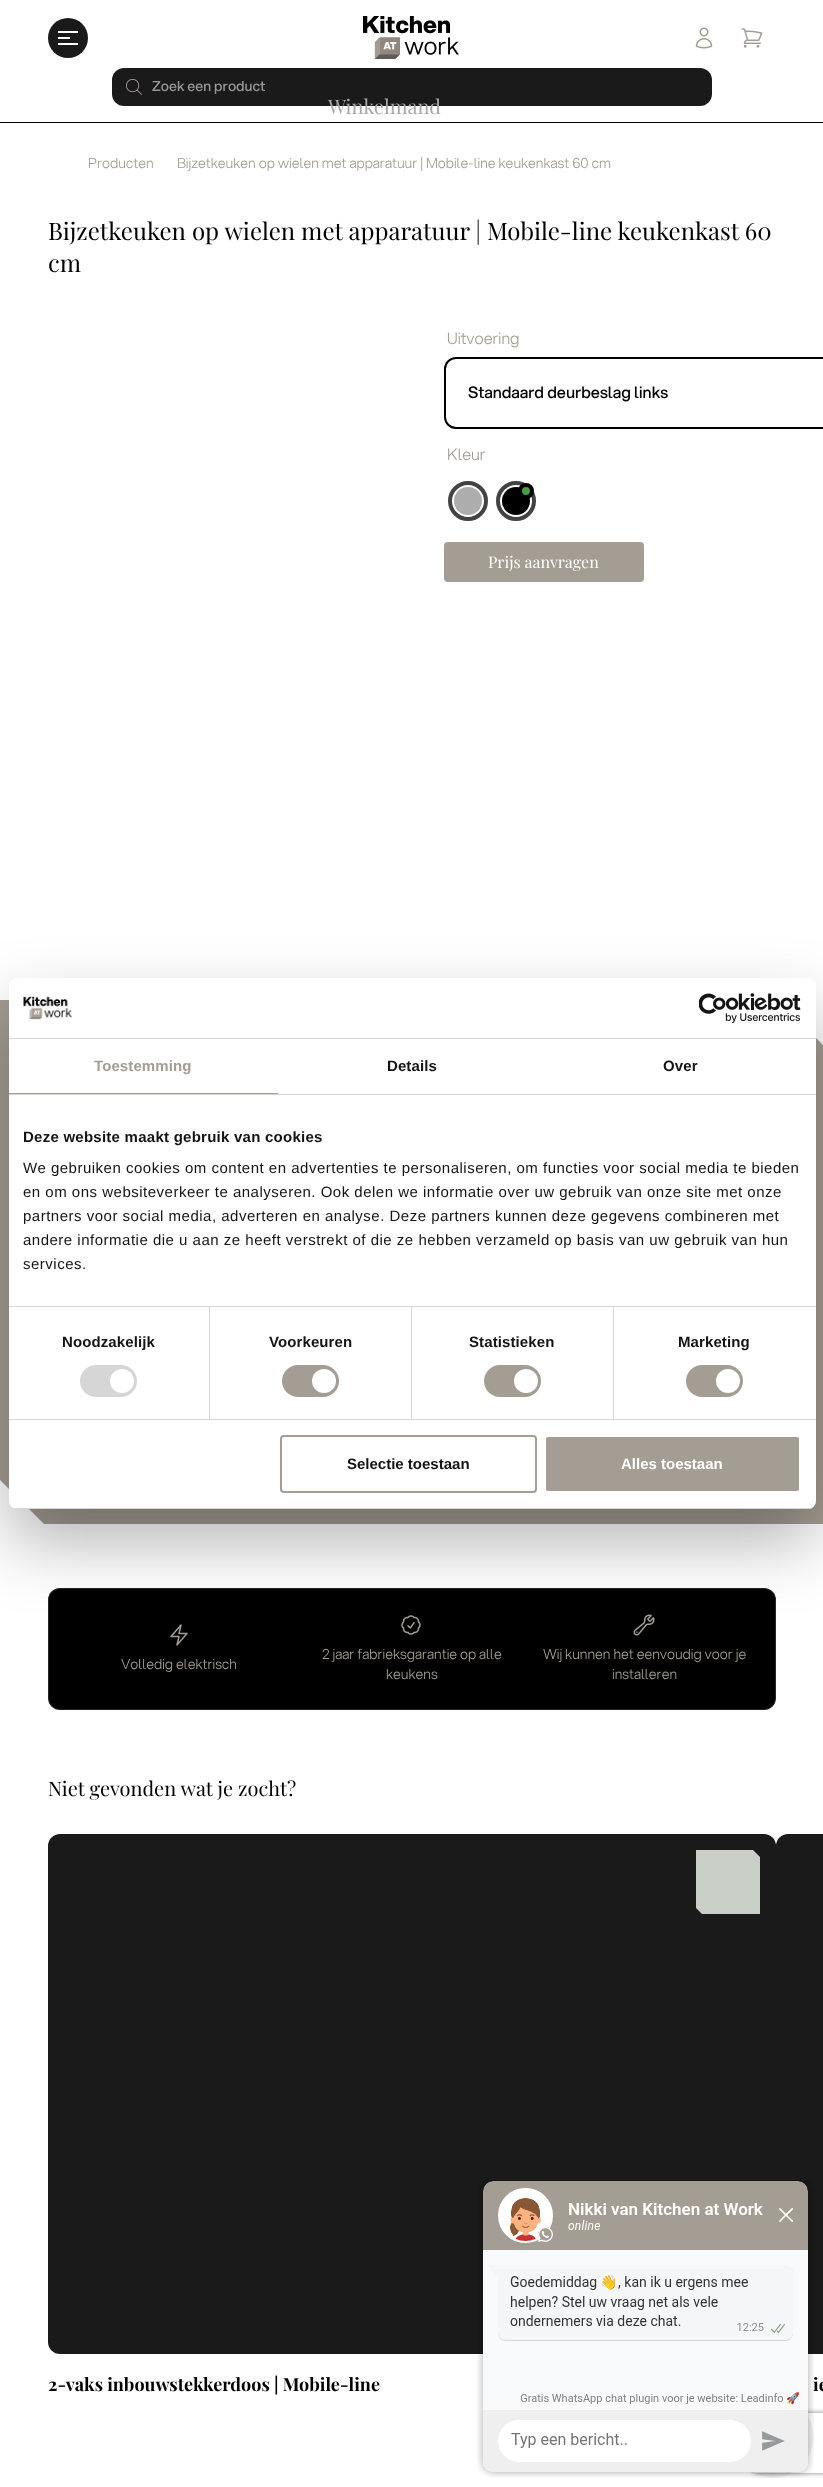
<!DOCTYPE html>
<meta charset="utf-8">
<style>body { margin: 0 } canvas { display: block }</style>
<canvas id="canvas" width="823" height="2487"></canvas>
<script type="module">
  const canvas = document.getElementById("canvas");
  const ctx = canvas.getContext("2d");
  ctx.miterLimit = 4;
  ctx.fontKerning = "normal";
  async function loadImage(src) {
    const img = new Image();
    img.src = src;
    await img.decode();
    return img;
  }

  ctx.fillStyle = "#ffffff";
  ctx.fillRect(0, 0, 823, 2487);
  ctx.fillStyle = "#000000";
  ctx.fillRect(0, 122, 823, 1);
  ctx.fillStyle = "#1a1a1a";
  ctx.beginPath();
  ctx.arc(68, 38, 20, 0, Math.PI * 2);
  ctx.fill();
  ctx.fillStyle = "#ffffff";
  ctx.fillRect(58, 31, 20, 2);
  ctx.fillRect(58, 37, 12, 2);
  ctx.fillRect(58, 43, 20, 2);
  ctx.drawImage(await loadImage("img1.png"), 363, 16, 96, 43);
  ctx.fillStyle = "#1a1a1a";
  ctx.beginPath();
  ctx.roundRect(112, 68, 600, 38, 12);
  ctx.fill();
  ctx.drawImage(await loadImage("img2.png"), 126, 79, 16, 16);
  ctx.font = "500 14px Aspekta";
  ctx.fillStyle = "#999999";
  ctx.fillText("Zoek een product", 152, 91);
  ctx.drawImage(await loadImage("img3.png"), 695, 27, 18, 22);
  ctx.drawImage(await loadImage("img4.png"), 741, 28, 22, 20);
  ctx.font = "20px Playfair Display";
  ctx.fillStyle = "#a7a7a7";
  ctx.fillText("Winkelmand", 328, 114);
  ctx.font = "300 14px Aspekta";
  ctx.fillStyle = "#a49d93";
  ctx.fillText("Producten", 88, 168);
  ctx.fillText("Bijzetkeuken op wielen met apparatuur | Mobile-line keukenkast 60 cm", 177, 168);
  ctx.font = "24px Playfair Display";
  ctx.fillStyle = "#000000";
  ctx.fillText("Bijzetkeuken op wielen met apparatuur | Mobile-line keukenkast 60", 48, 240);
  ctx.fillText("cm", 48, 272);
  ctx.font = "300 16px Aspekta";
  ctx.fillStyle = "#a49d93";
  ctx.fillText("Uitvoering", 447, 344);
  ctx.beginPath();
  ctx.roundRect(445, 358, 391, 70, 11);
  ctx.strokeStyle = "#000000";
  ctx.lineWidth = 2;
  ctx.stroke();
  ctx.font = "500 16px Aspekta";
  ctx.fillStyle = "#000000";
  ctx.fillText("Standaard deurbeslag links", 468, 398);
  ctx.font = "300 16px Aspekta";
  ctx.fillStyle = "#a49d93";
  ctx.fillText("Kleur", 447, 460);
  ctx.beginPath();
  ctx.arc(468, 501, 18, 0, Math.PI * 2);
  ctx.strokeStyle = "#434343";
  ctx.lineWidth = 4;
  ctx.stroke();
  ctx.fillStyle = "#adadad";
  ctx.beginPath();
  ctx.arc(468, 501, 14, 0, Math.PI * 2);
  ctx.fill();
  ctx.beginPath();
  ctx.arc(516, 501, 18, 0, Math.PI * 2);
  ctx.stroke();
  ctx.fillStyle = "#000000";
  ctx.beginPath();
  ctx.arc(516, 501, 14, 0, Math.PI * 2);
  ctx.fill();
  ctx.fillStyle = "#43a047";
  ctx.beginPath();
  ctx.arc(526, 491, 6, 0, Math.PI * 2);
  ctx.fill();
  ctx.strokeStyle = "#000000";
  ctx.stroke();
  ctx.fillStyle = "#a49d93";
  ctx.beginPath();
  ctx.roundRect(444, 542, 200, 40, 4);
  ctx.fill();
  ctx.font = "16px Playfair Display";
  ctx.fillStyle = "#ffffff";
  ctx.fillText("Prijs aanvragen", 488, 568);
  ctx.fillStyle = "#a49d93";
  ctx.fillRect(0, 1000, 823, 524);
  ctx.save();
  ctx.beginPath();
  ctx.rect(779, 1000, 44, 64);
  ctx.clip();
  ctx.fillStyle = "#ffffff";
  ctx.beginPath();
  ctx.moveTo(779, 1000);
  ctx.lineTo(810, 969);
  ctx.lineTo(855, 1014);
  ctx.lineTo(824, 1046);
  ctx.closePath();
  ctx.fill();
  ctx.restore();
  ctx.save();
  ctx.beginPath();
  ctx.rect(0, 1460, 44, 64);
  ctx.clip();
  ctx.fillStyle = "#ffffff";
  ctx.beginPath();
  ctx.moveTo(-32, 1510);
  ctx.lineTo(-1, 1479);
  ctx.lineTo(44, 1524);
  ctx.lineTo(13, 1555);
  ctx.closePath();
  ctx.fill();
  ctx.restore();
  ctx.fillStyle = "#000000";
  ctx.beginPath();
  ctx.roundRect(48, 1588, 728, 122, 12);
  ctx.fill();
  ctx.beginPath();
  ctx.roundRect(48.5, 1588.5, 727, 121, 11.5);
  ctx.strokeStyle = "rgba(255, 255, 255, 0.15)";
  ctx.lineWidth = 1;
  ctx.stroke();
  ctx.beginPath();
  ctx.moveTo(171, 1636.5);
  ctx.lineTo(181, 1625);
  ctx.lineTo(179, 1633.5);
  ctx.lineTo(187, 1633.5);
  ctx.lineTo(177, 1645);
  ctx.lineTo(179, 1636.5);
  ctx.closePath();
  ctx.strokeStyle = "#a49d93";
  ctx.lineWidth = 1.5;
  ctx.lineCap = "round";
  ctx.lineJoin = "round";
  ctx.stroke();
  ctx.font = "300 14px Aspekta";
  ctx.fillStyle = "#a49d93";
  ctx.fillText("Volledig elektrisch", 121, 1669);
  ctx.drawImage(await loadImage("img5.png"), 401, 1615, 20, 20);
  ctx.fillText("2 jaar fabrieksgarantie op alle", 322, 1659);
  ctx.fillText("keukens", 386, 1679);
  ctx.drawImage(await loadImage("img6.png"), 633, 1614, 22, 22);
  ctx.fillText("Wij kunnen het eenvoudig voor je", 543, 1659);
  ctx.fillText("installeren", 612, 1679);
  ctx.font = "20px Playfair Display";
  ctx.fillStyle = "#000000";
  ctx.fillText("Niet gevonden wat je zocht?", 48, 1796);
  ctx.fillStyle = "#1a1a1a";
  ctx.beginPath();
  ctx.roundRect(48, 1834, 728, 520, 12);
  ctx.fill();
  ctx.fillStyle = "#c9cfc7";
  ctx.beginPath();
  ctx.moveTo(753, 1850);
  ctx.lineTo(696, 1850);
  ctx.lineTo(696, 1908);
  ctx.lineTo(702, 1914);
  ctx.lineTo(760, 1914);
  ctx.lineTo(760, 1857);
  ctx.closePath();
  ctx.fill();
  ctx.font = "bold 18px Playfair Display";
  ctx.fillStyle = "#000000";
  ctx.fillText("2-vaks inbouwstekkerdoos | Mobile-line", 48, 2391);
  ctx.fillStyle = "#1a1a1a";
  ctx.beginPath();
  ctx.roundRect(776, 1834, 47, 520, [12, 0, 0, 12]);
  ctx.fill();
  ctx.fillStyle = "#000000";
  ctx.fillText("ie", 813, 2391);
  ctx.fillStyle = "rgba(0, 0, 0, 0.3)";
  ctx.filter = "blur(34px)";
  ctx.beginPath();
  ctx.roundRect(9, 1010, 807, 531, 8);
  ctx.fill();
  ctx.filter = "none";
  ctx.fillStyle = "#ffffff";
  ctx.beginPath();
  ctx.roundRect(9, 978, 807, 531, 8);
  ctx.fill();
  ctx.fillStyle = "#d6d6d6";
  ctx.fillRect(9, 1038, 807, 1);
  ctx.drawImage(await loadImage("img7.png"), 23, 996, 49, 24);
  ctx.drawImage(await loadImage("img8.png"), 699, 993, 102, 30);
  ctx.fillRect(9, 1094, 807, 1);
  ctx.fillStyle = "#a49d93";
  ctx.fillRect(9, 1093, 269, 1);
  ctx.letterSpacing = "0.1px";
  ctx.font = "bold 15px Liberation Sans";
  ctx.fillText("Toestemming", 94, 1071);
  ctx.fillStyle = "#141414";
  ctx.fillText("Details", 387, 1071);
  ctx.fillText("Over", 663, 1071);
  ctx.fillStyle = "#d6d6d6";
  ctx.fillRect(9, 1306, 807, 1);
  ctx.letterSpacing = "0.25px";
  ctx.fillStyle = "#141414";
  ctx.fillText("Deze website maakt gebruik van cookies", 23, 1142);
  ctx.letterSpacing = "0.5px";
  ctx.font = "15px Liberation Sans";
  ctx.fillText("We gebruiken cookies om content en advertenties te personaliseren, om functies voor social media te bieden", 23, 1173);
  ctx.fillText("en om ons websiteverkeer te analyseren. Ook delen we informatie over uw gebruik van onze site met onze", 23, 1197);
  ctx.fillText("partners voor social media, adverteren en analyse. Deze partners kunnen deze gegevens combineren met", 23, 1221);
  ctx.fillText("andere informatie die u aan ze heeft verstrekt of die ze hebben verzameld op basis van uw gebruik van hun", 23, 1245);
  ctx.fillText("services.", 23, 1269);
  ctx.fillStyle = "#d6d6d6";
  ctx.fillRect(9, 1419, 807, 1);
  ctx.fillRect(209, 1307, 1, 112);
  ctx.letterSpacing = "0.1px";
  ctx.font = "bold 15px Liberation Sans";
  ctx.fillStyle = "#141414";
  ctx.fillText("Noodzakelijk", 62, 1347);
  ctx.fillStyle = "#d6d6d6";
  ctx.beginPath();
  ctx.roundRect(80, 1365, 57, 32, 16);
  ctx.fill();
  ctx.fillStyle = "#ffffff";
  ctx.beginPath();
  ctx.arc(122, 1381, 12, 0, Math.PI * 2);
  ctx.fill();
  ctx.fillStyle = "#d6d6d6";
  ctx.fillRect(411, 1307, 1, 112);
  ctx.fillStyle = "#141414";
  ctx.fillText("Voorkeuren", 269, 1347);
  ctx.fillStyle = "#a49d93";
  ctx.beginPath();
  ctx.roundRect(282, 1365, 57, 32, 16);
  ctx.fill();
  ctx.fillStyle = "#ffffff";
  ctx.beginPath();
  ctx.arc(324, 1381, 12, 0, Math.PI * 2);
  ctx.fill();
  ctx.fillStyle = "#d6d6d6";
  ctx.fillRect(613, 1307, 1, 112);
  ctx.fillStyle = "#141414";
  ctx.fillText("Statistieken", 469, 1347);
  ctx.fillStyle = "#a49d93";
  ctx.beginPath();
  ctx.roundRect(484, 1365, 57, 32, 16);
  ctx.fill();
  ctx.fillStyle = "#ffffff";
  ctx.beginPath();
  ctx.arc(526, 1381, 12, 0, Math.PI * 2);
  ctx.fill();
  ctx.fillStyle = "#141414";
  ctx.fillText("Marketing", 678, 1347);
  ctx.fillStyle = "#a49d93";
  ctx.beginPath();
  ctx.roundRect(686, 1365, 57, 32, 16);
  ctx.fill();
  ctx.fillStyle = "#ffffff";
  ctx.beginPath();
  ctx.arc(728, 1381, 12, 0, Math.PI * 2);
  ctx.fill();
  ctx.save();
  ctx.beginPath();
  ctx.roundRect(9, 978, 807, 531, 8);
  ctx.clip();
  ctx.fillStyle = "#d6d6d6";
  ctx.fillRect(9, 1508, 807, 1);
  ctx.restore();
  ctx.beginPath();
  ctx.roundRect(281, 1436, 255, 56, 3);
  ctx.lineWidth = 2;
  ctx.lineJoin = "miter";
  ctx.stroke();
  ctx.letterSpacing = "0px";
  ctx.fillStyle = "#141414";
  ctx.fillText("Selectie toestaan", 347, 1469);
  ctx.fillStyle = "#a49d93";
  ctx.beginPath();
  ctx.roundRect(545, 1436, 255, 56, 3);
  ctx.fill();
  ctx.strokeStyle = "#ffffff";
  ctx.stroke();
  ctx.fillStyle = "#ffffff";
  ctx.fillText("Alles toestaan", 621, 1469);
  ctx.save();
  ctx.beginPath();
  ctx.moveTo(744, 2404);
  ctx.lineTo(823, 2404);
  ctx.lineTo(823, 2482);
  ctx.lineTo(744, 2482);
  ctx.closePath();
  ctx.moveTo(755, 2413);
  ctx.lineTo(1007, 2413);
  ctx.bezierCurveTo(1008, 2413, 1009, 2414, 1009, 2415);
  ctx.lineTo(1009, 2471);
  ctx.bezierCurveTo(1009, 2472, 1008, 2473, 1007, 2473);
  ctx.lineTo(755, 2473);
  ctx.bezierCurveTo(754, 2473, 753, 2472, 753, 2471);
  ctx.lineTo(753, 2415);
  ctx.bezierCurveTo(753, 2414, 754, 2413, 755, 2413);
  ctx.closePath();
  ctx.clip("evenodd");
  ctx.fillStyle = "#808080";
  ctx.filter = "blur(2.5px)";
  ctx.beginPath();
  ctx.roundRect(753, 2413, 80, 60, 2);
  ctx.fill();
  ctx.filter = "none";
  ctx.restore();
  ctx.drawImage(await loadImage("img10.png"), 753, 2417, 61, 61);
  ctx.drawImage(await loadImage("img9.png"), 477, 2180, 337, 298);
</script>
